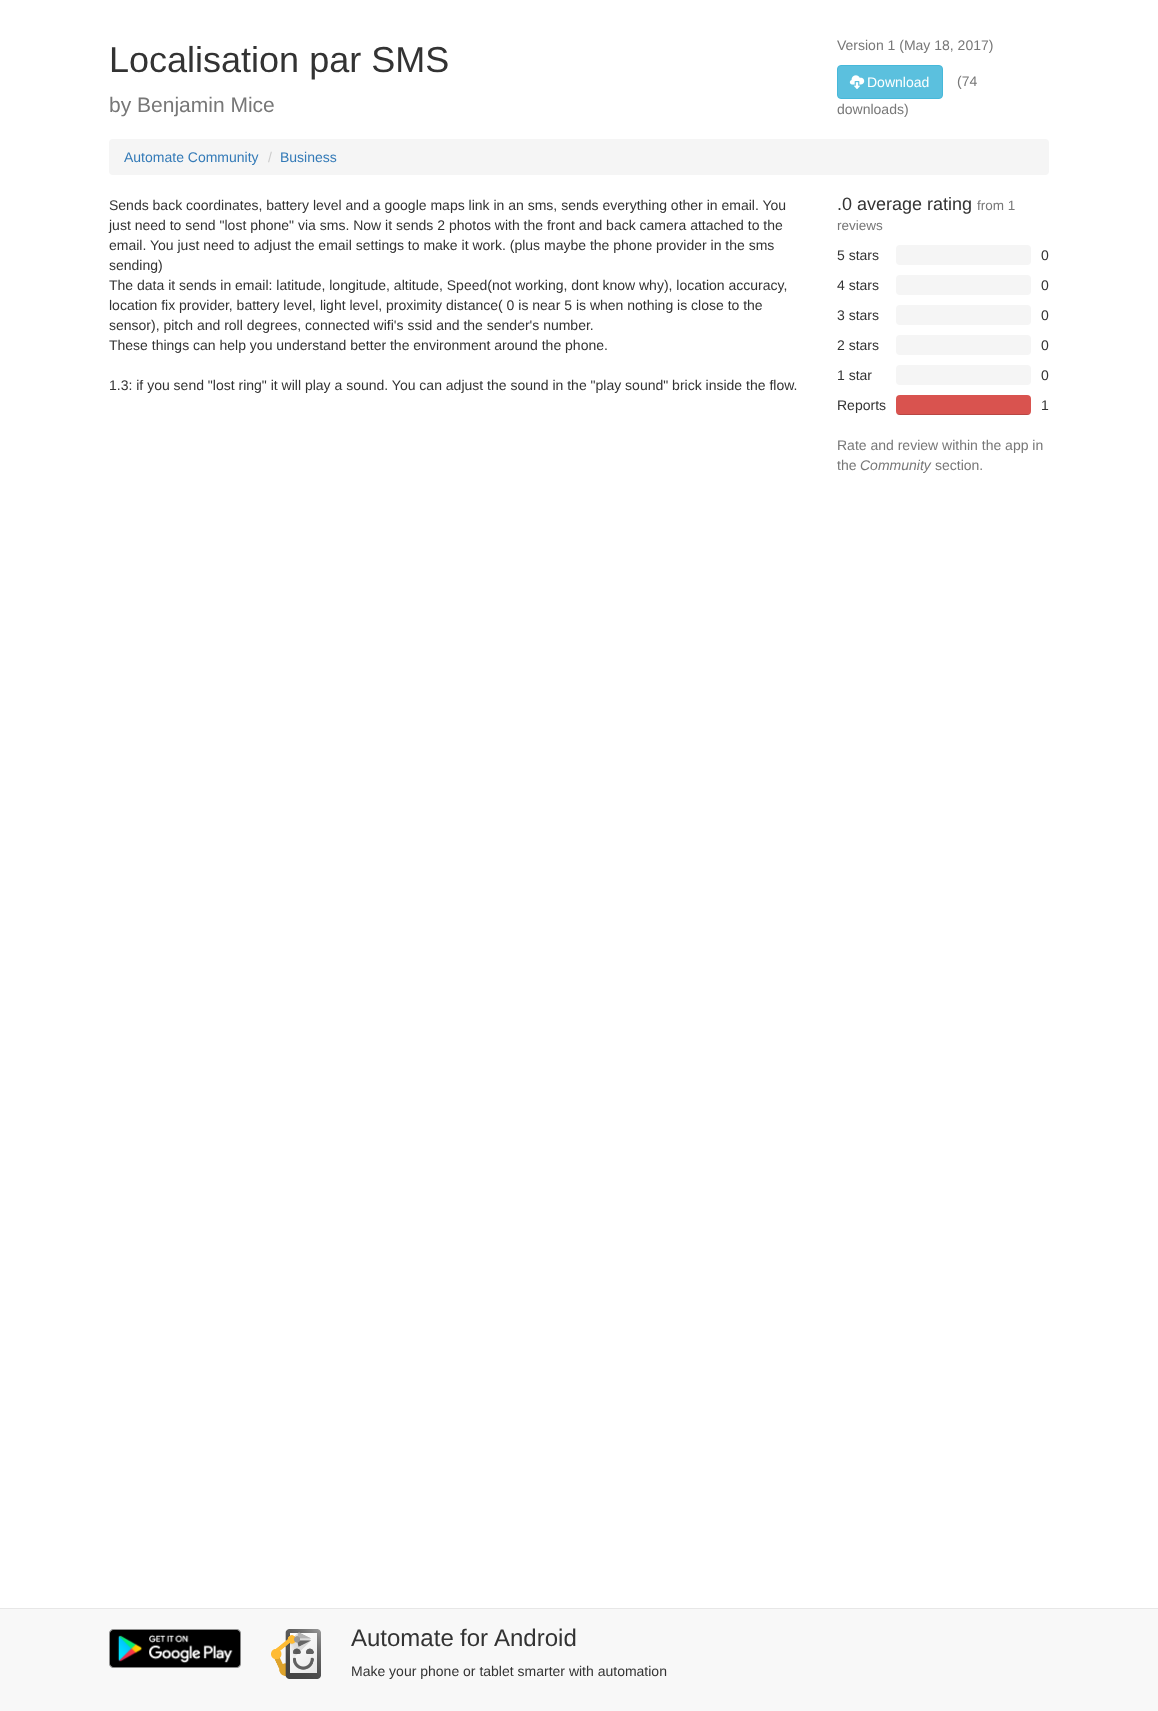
<!DOCTYPE html>
<meta charset="utf-8">
<style>body { margin: 0 } canvas { display: block }</style>
<canvas id="canvas" width="1158" height="1711"></canvas>
<script type="module">
  const canvas = document.getElementById("canvas");
  const ctx = canvas.getContext("2d");
  ctx.miterLimit = 4;
  ctx.fontKerning = "normal";
  async function loadImage(src) {
    const img = new Image();
    img.src = src;
    await img.decode();
    return img;
  }

  ctx.fillStyle = "#ffffff";
  ctx.fillRect(0, 0, 1158, 1711);
  ctx.font = "36px Liberation Sans";
  ctx.fillStyle = "#333333";
  ctx.fillText("Localisation par SMS", 109, 72);
  ctx.font = "21px Liberation Sans";
  ctx.fillStyle = "#777777";
  ctx.fillText("by Benjamin Mice", 109, 112);
  ctx.font = "14px Liberation Sans";
  ctx.fillText("Version 1 (May 18, 2017)", 837, 50);
  ctx.fillStyle = "#5bc0de";
  ctx.beginPath();
  ctx.roundRect(837.5, 65.5, 105, 33, 3.5);
  ctx.fill();
  ctx.strokeStyle = "#46b8da";
  ctx.stroke();
  ctx.drawImage(await loadImage("img1.png"), 849, 75, 16, 14);
  ctx.fillStyle = "#ffffff";
  ctx.fillText("Download", 867, 87);
  ctx.fillStyle = "#777777";
  ctx.fillText("(74", 957, 86);
  ctx.fillText("downloads)", 837, 114);
  ctx.fillStyle = "#f5f5f5";
  ctx.beginPath();
  ctx.roundRect(109, 139, 940, 36, 4);
  ctx.fill();
  ctx.fillStyle = "#337ab7";
  ctx.fillText("Automate Community", 124, 162);
  ctx.fillStyle = "#cccccc";
  ctx.fillText("/", 268, 162);
  ctx.fillStyle = "#337ab7";
  ctx.fillText("Business", 280, 162);
  ctx.fillStyle = "#333333";
  ctx.fillText("Sends back coordinates, battery level and a google maps link in an sms, sends everything other in email. You", 109, 210);
  ctx.fillText("just need to send \"lost phone\" via sms. Now it sends 2 photos with the front and back camera attached to the", 109, 230);
  ctx.fillText("email. You just need to adjust the email settings to make it work. (plus maybe the phone provider in the sms", 109, 250);
  ctx.fillText("sending)", 109, 270);
  ctx.fillText("The data it sends in email: latitude, longitude, altitude, Speed(not working, dont know why), location accuracy,", 109, 290);
  ctx.fillText("location fix provider, battery level, light level, proximity distance( 0 is near 5 is when nothing is close to the", 109, 310);
  ctx.fillText("sensor), pitch and roll degrees, connected wifi's ssid and the sender's number.", 109, 330);
  ctx.fillText("These things can help you understand better the environment around the phone.", 109, 350);
  ctx.fillText("1.3: if you send \"lost ring\" it will play a sound. You can adjust the sound in the \"play sound\" brick inside the flow.", 109, 390);
  ctx.font = "18px Liberation Sans";
  ctx.fillText(".0 average rating", 837, 210);
  ctx.font = "13.5px Liberation Sans";
  ctx.fillStyle = "#777777";
  ctx.fillText("from 1", 977, 210);
  ctx.fillText("reviews", 837, 230);
  ctx.font = "14px Liberation Sans";
  ctx.fillStyle = "#333333";
  ctx.fillText("5 stars", 837, 260);
  ctx.fillStyle = "#f5f5f5";
  ctx.beginPath();
  ctx.roundRect(896, 245, 135, 20, 4);
  ctx.fill();
  ctx.fillStyle = "#333333";
  ctx.fillText("0", 1041, 260);
  ctx.fillText("4 stars", 837, 290);
  ctx.fillStyle = "#f5f5f5";
  ctx.beginPath();
  ctx.roundRect(896, 275, 135, 20, 4);
  ctx.fill();
  ctx.fillStyle = "#333333";
  ctx.fillText("0", 1041, 290);
  ctx.fillText("3 stars", 837, 320);
  ctx.fillStyle = "#f5f5f5";
  ctx.beginPath();
  ctx.roundRect(896, 305, 135, 20, 4);
  ctx.fill();
  ctx.fillStyle = "#333333";
  ctx.fillText("0", 1041, 320);
  ctx.fillText("2 stars", 837, 350);
  ctx.fillStyle = "#f5f5f5";
  ctx.beginPath();
  ctx.roundRect(896, 335, 135, 20, 4);
  ctx.fill();
  ctx.fillStyle = "#333333";
  ctx.fillText("0", 1041, 350);
  ctx.fillText("1 star", 837, 380);
  ctx.fillStyle = "#f5f5f5";
  ctx.beginPath();
  ctx.roundRect(896, 365, 135, 20, 4);
  ctx.fill();
  ctx.fillStyle = "#333333";
  ctx.fillText("0", 1041, 380);
  ctx.fillText("Reports", 837, 410);
  ctx.fillStyle = "#d9534f";
  ctx.beginPath();
  ctx.roundRect(896, 395, 135, 20, 4);
  ctx.fill();
  ctx.save();
  ctx.beginPath();
  ctx.roundRect(896, 395, 135, 20, 4);
  ctx.clip();
  ctx.fillStyle = "rgba(0, 0, 0, 0.15)";
  ctx.fillRect(896, 414, 135, 1);
  ctx.restore();
  ctx.fillStyle = "#333333";
  ctx.fillText("1", 1041, 410);
  ctx.fillStyle = "#777777";
  ctx.fillText("Rate and review within the app in", 837, 450);
  ctx.fillText("the", 837, 470);
  ctx.font = "italic 14px Liberation Sans";
  ctx.fillText("Community", 860, 470);
  ctx.font = "14px Liberation Sans";
  ctx.fillText("section.", 935, 470);
  ctx.fillStyle = "#f8f8f8";
  ctx.fillRect(0, 1609, 1158, 102);
  ctx.fillStyle = "#e7e7e7";
  ctx.fillRect(0, 1608, 1158, 1);
  ctx.drawImage(await loadImage("img2.png"), 109, 1629, 132, 39);
  ctx.drawImage(await loadImage("img3.png"), 271, 1629, 50, 50);
  ctx.font = "24px Liberation Sans";
  ctx.fillStyle = "#333333";
  ctx.fillText("Automate", 351, 1646);
  ctx.fillText("for", 460, 1646);
  ctx.fillText("Android", 494, 1646);
  ctx.font = "14px Liberation Sans";
  ctx.fillText("Make your phone or tablet smarter with automation", 351, 1676);
</script>
